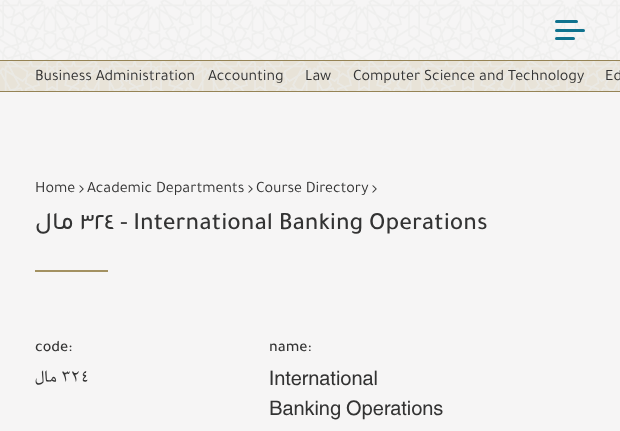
<!DOCTYPE html>
<meta charset="utf-8">
<style>body { margin: 0 } canvas { display: block }</style>
<canvas id="canvas" width="620" height="431"></canvas>
<script type="module">
  const canvas = document.getElementById("canvas");
  const ctx = canvas.getContext("2d");
  ctx.miterLimit = 4;
  ctx.fontKerning = "normal";
  async function loadImage(src) {
    const img = new Image();
    img.src = src;
    await img.decode();
    return img;
  }

  ctx.fillStyle = "#f6f5f5";
  ctx.fillRect(0, 0, 620, 431);
  ctx.drawImage(await loadImage("img1.png"), 0, 0, 620, 60);
  ctx.fillStyle = "#958355";
  ctx.fillRect(0, 60, 620, 1);
  ctx.fillStyle = "#0f728e";
  ctx.beginPath();
  ctx.roundRect(555, 29, 30, 3, 1.5);
  ctx.fill();
  ctx.beginPath();
  ctx.roundRect(555, 20, 23, 3, 1.5);
  ctx.fill();
  ctx.beginPath();
  ctx.roundRect(555, 37, 20, 3, 1.5);
  ctx.fill();
  ctx.fillStyle = "#e8e3d8";
  ctx.fillRect(0, 61, 620, 30);
  ctx.drawImage(await loadImage("img2.png"), 0, 61, 620, 30);
  ctx.fillStyle = "#958355";
  ctx.fillRect(0, 91, 620, 1);
  ctx.font = "16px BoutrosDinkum";
  ctx.fillStyle = "#333333";
  ctx.fillText("Business Administration", 35, 80);
  ctx.fillText("Accounting", 208, 80);
  ctx.fillText("Law", 305, 80);
  ctx.fillText("Computer Science and Technology", 353, 80);
  ctx.fillText("Ed", 605, 80);
  ctx.fillText("Home", 35, 192);
  ctx.drawImage(await loadImage("img3.png"), 79, 185, 5, 8);
  ctx.fillText("Academic Departments", 87, 192);
  ctx.drawImage(await loadImage("img3.png"), 248, 185, 5, 8);
  ctx.fillText("Course Directory", 256, 192);
  ctx.drawImage(await loadImage("img3.png"), 372, 185, 5, 8);
  ctx.direction = "rtl";
  ctx.font = "500 25px BoutrosDinkum";
  ctx.fillText("مال", 74, 229);
  ctx.direction = "ltr";
  ctx.fillText("٣٢٤ - International Banking Operations", 80, 229);
  ctx.fillStyle = "#a39161";
  ctx.fillRect(35, 270, 73, 2);
  ctx.font = "500 16px BoutrosDinkum";
  ctx.fillStyle = "#333333";
  ctx.fillText("code:", 35, 351);
  ctx.direction = "rtl";
  ctx.font = "20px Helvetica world";
  ctx.fillText("مال", 57, 385);
  ctx.direction = "ltr";
  ctx.fillText("٣٢٤", 61, 385);
  ctx.font = "500 16px BoutrosDinkum";
  ctx.fillText("name:", 269, 351);
  ctx.font = "20px Helvetica world";
  ctx.fillText("International", 269, 385);
  ctx.fillText("Banking Operations", 269, 415);
</script>
